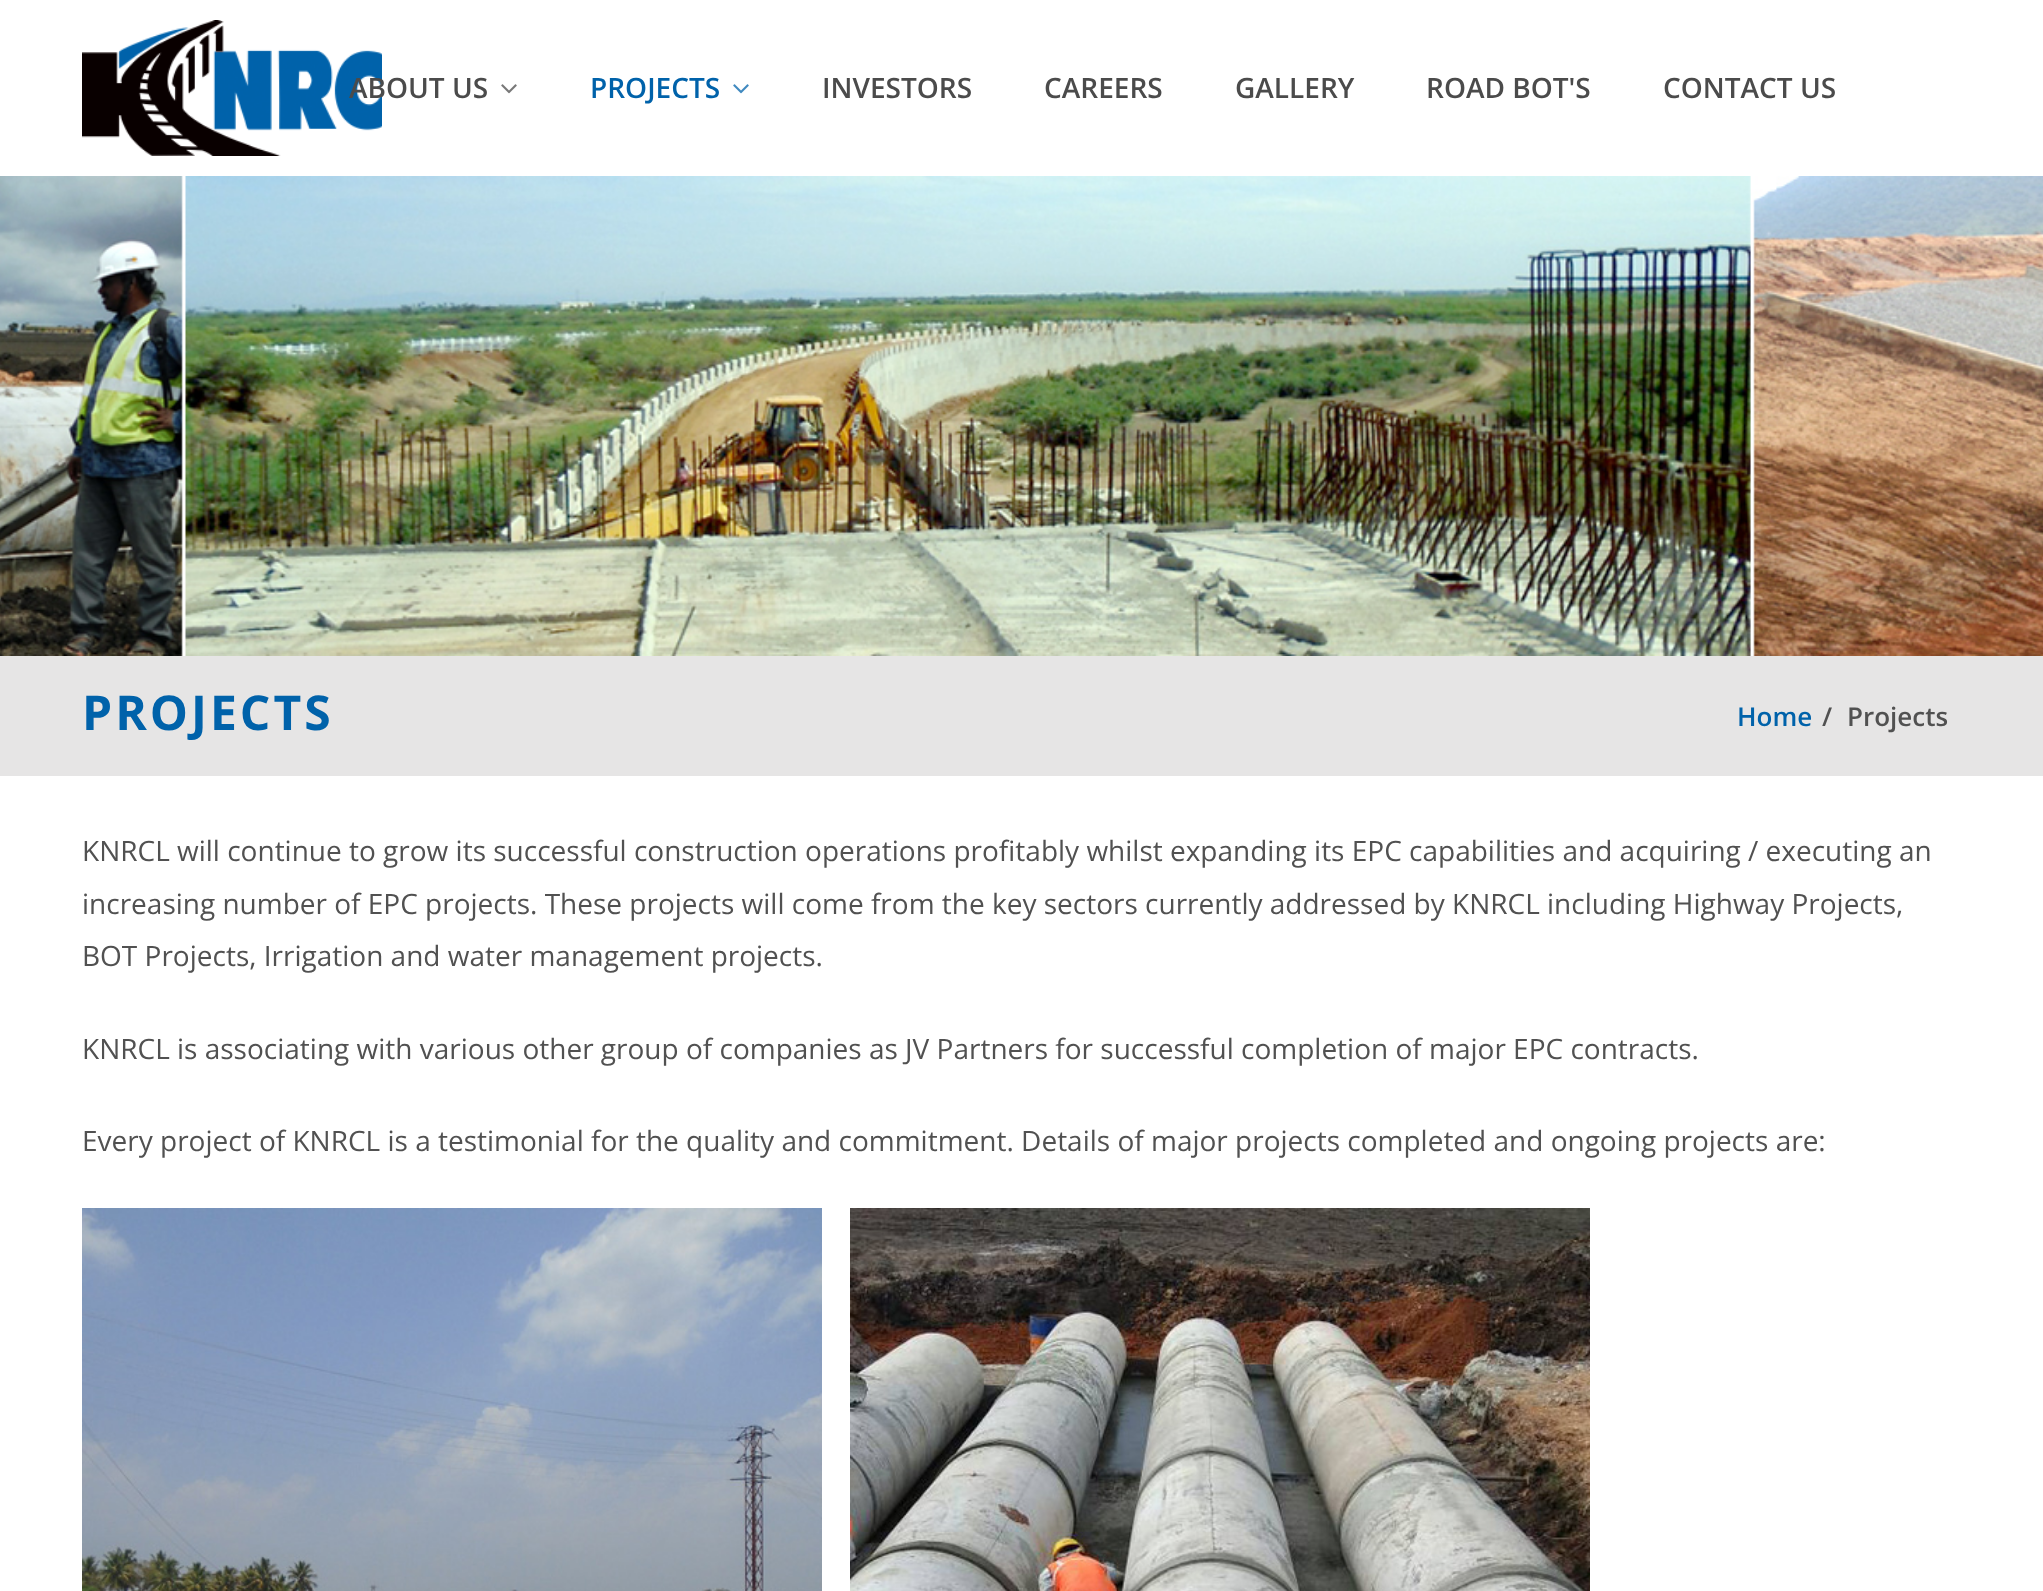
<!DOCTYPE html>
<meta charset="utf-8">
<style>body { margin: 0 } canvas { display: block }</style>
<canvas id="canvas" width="2043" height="1591"></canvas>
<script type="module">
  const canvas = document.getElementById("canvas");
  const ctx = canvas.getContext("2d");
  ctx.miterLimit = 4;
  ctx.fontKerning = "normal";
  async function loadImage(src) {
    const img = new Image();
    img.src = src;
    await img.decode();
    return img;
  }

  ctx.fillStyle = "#ffffff";
  ctx.fillRect(0, 0, 2043, 1591);
  ctx.drawImage(await loadImage("img1.png"), 82, 20, 300, 136);
  ctx.font = "600 28px Open Sans";
  ctx.fillStyle = "#4b4b4b";
  ctx.fillText("ABOUT US", 349, 98);
  ctx.drawImage(await loadImage("img2.png"), 501, 84, 16, 10);
  ctx.fillStyle = "#0062aa";
  ctx.fillText("PROJECTS", 590, 98);
  ctx.drawImage(await loadImage("img3.png"), 733, 84, 16, 10);
  ctx.fillStyle = "#4b4b4b";
  ctx.fillText("INVESTORS", 822, 98);
  ctx.fillText("CAREERS", 1044, 98);
  ctx.fillText("GALLERY", 1235, 98);
  ctx.fillText("ROAD BOT'S", 1426, 98);
  ctx.fillText("CONTACT US", 1663, 98);
  ctx.drawImage(await loadImage("img4.png"), 0, 176, 2043, 480);
  ctx.fillStyle = "#e6e5e5";
  ctx.fillRect(0, 656, 2043, 120);
  ctx.letterSpacing = "3px";
  ctx.font = "bold 48px Open Sans";
  ctx.fillStyle = "#0062aa";
  ctx.fillText("PROJECTS", 82, 730);
  ctx.letterSpacing = "0px";
  ctx.font = "600 26px Open Sans";
  ctx.fillText("Home", 1737, 726);
  ctx.fillStyle = "#515151";
  ctx.fillText("/", 1822, 726);
  ctx.fillText("Projects", 1847, 726);
  ctx.font = "28px Open Sans";
  ctx.fillText("KNRCL will continue to grow its successful construction operations profitably whilst expanding its EPC capabilities and acquiring / executing an", 82, 861);
  ctx.fillText("increasing number of EPC projects. These projects will come from the key sectors currently addressed by KNRCL including Highway Projects,", 82, 914);
  ctx.fillText("BOT Projects, Irrigation and water management projects.", 82, 966);
  ctx.fillText("KNRCL is associating with various other group of companies as JV Partners for successful completion of major EPC contracts.", 82, 1059);
  ctx.fillText("Every project of KNRCL is a testimonial for the quality and commitment. Details of major projects completed and ongoing projects are:", 82, 1151);
  ctx.drawImage(await loadImage("img5.png"), 82, 1208, 740, 383);
  ctx.drawImage(await loadImage("img6.png"), 850, 1208, 740, 383);
</script>
